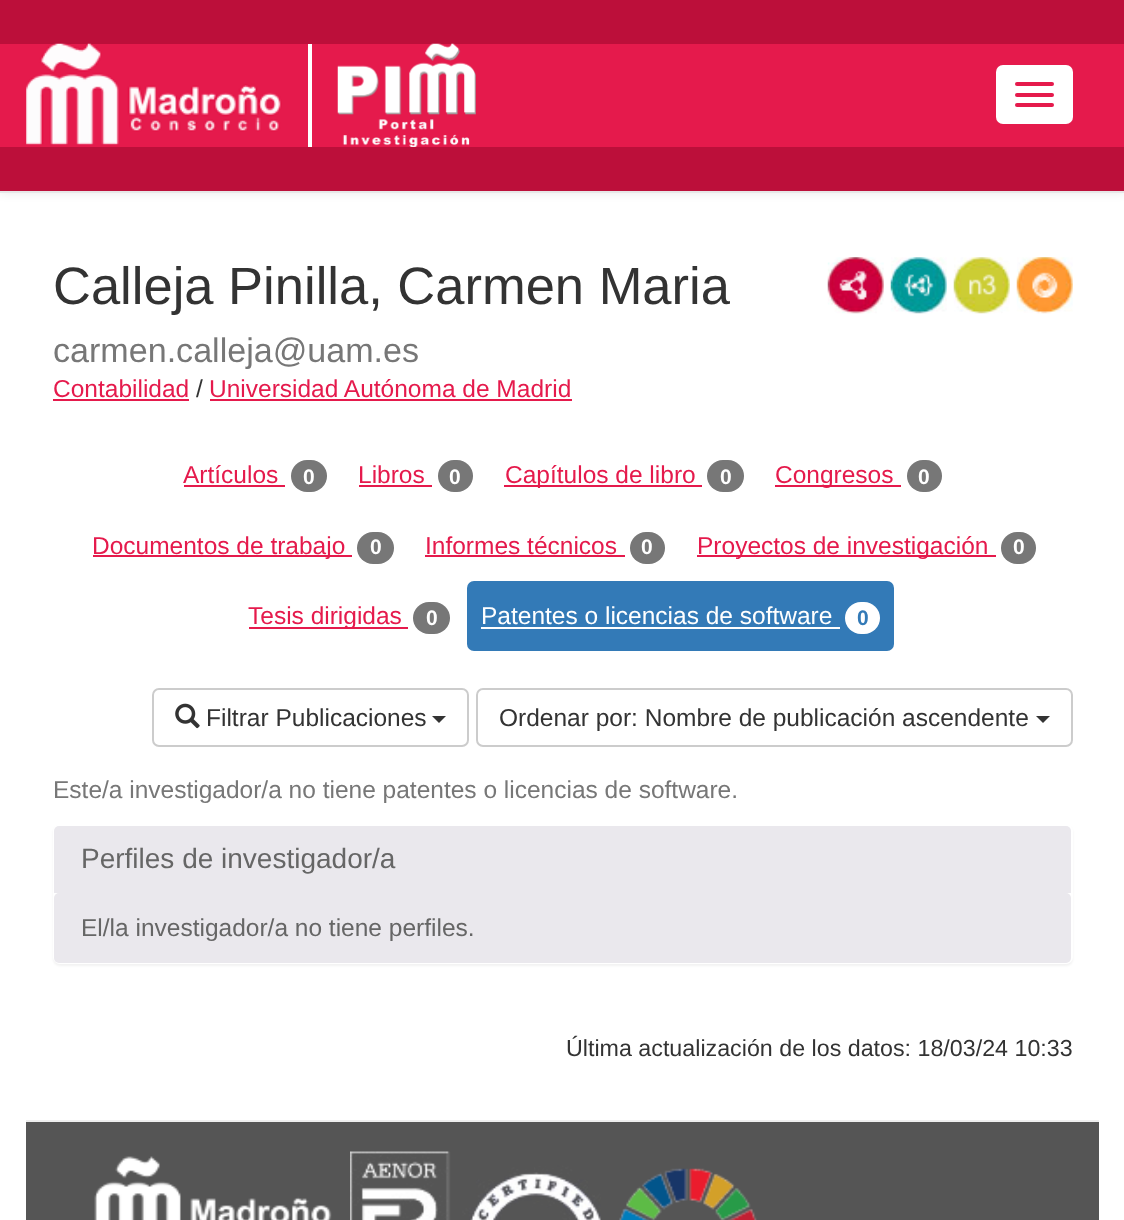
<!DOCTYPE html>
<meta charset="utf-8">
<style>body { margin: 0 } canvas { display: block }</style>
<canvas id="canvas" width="1124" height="1220"></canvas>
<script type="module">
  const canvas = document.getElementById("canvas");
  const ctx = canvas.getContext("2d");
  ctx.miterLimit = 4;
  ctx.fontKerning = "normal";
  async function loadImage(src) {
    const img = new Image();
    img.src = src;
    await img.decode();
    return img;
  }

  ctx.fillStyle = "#ffffff";
  ctx.fillRect(0, 0, 1124, 1220);
  ctx.fillStyle = "rgba(0, 0, 0, 0.07)";
  ctx.filter = "blur(4.5px)";
  ctx.beginPath();
  ctx.rect(0, 2, 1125, 192);
  ctx.fill();
  ctx.filter = "none";
  ctx.fillStyle = "#e7e7e7";
  ctx.fillRect(0, 191, 1124, 2);
  ctx.fillStyle = "#e51a4c";
  ctx.fillRect(0, 44, 1124, 103);
  ctx.fillStyle = "#bc0f3a";
  ctx.fillRect(0, 0, 1124, 44);
  ctx.fillRect(0, 147, 1124, 44);
  ctx.fillStyle = "#ffffff";
  ctx.fillRect(308, 44, 4, 103);
  ctx.drawImage(await loadImage("img1.png"), 26, 43, 256, 102);
  ctx.drawImage(await loadImage("img2.png"), 337, 43, 139, 104);
  ctx.beginPath();
  ctx.roundRect(996, 65, 77, 59, 7);
  ctx.fill();
  ctx.fillStyle = "#e51a4c";
  ctx.beginPath();
  ctx.roundRect(1015, 82, 39, 4, 2);
  ctx.fill();
  ctx.beginPath();
  ctx.roundRect(1015, 93, 39, 4, 2);
  ctx.fill();
  ctx.beginPath();
  ctx.roundRect(1015, 103, 39, 4, 2);
  ctx.fill();
  ctx.font = "52.5px Liberation Sans";
  ctx.fillStyle = "#333333";
  ctx.fillText("Calleja Pinilla, Carmen Maria", 53, 304);
  ctx.font = "34.1px Liberation Sans";
  ctx.fillStyle = "#777777";
  ctx.fillText("carmen.calleja@uam.es", 53, 362);
  ctx.drawImage(await loadImage("img3.png"), 827, 257, 57, 57);
  ctx.drawImage(await loadImage("img4.png"), 890, 257, 57, 57);
  ctx.drawImage(await loadImage("img5.png"), 953, 257, 57, 57);
  ctx.drawImage(await loadImage("img6.png"), 1016, 257, 57, 57);
  ctx.font = "24.5px Liberation Sans";
  ctx.fillStyle = "#e51a4c";
  ctx.fillText("Contabilidad", 53, 397);
  ctx.fillRect(53, 399, 136, 2);
  ctx.fillStyle = "#333333";
  ctx.fillText("/", 196, 397);
  ctx.fillStyle = "#e51a4c";
  ctx.fillText("Universidad Autónoma de Madrid", 209, 397);
  ctx.fillRect(210, 399, 362, 2);
  ctx.fillText("Artículos", 183, 483);
  ctx.fillRect(184, 485, 101, 2);
  ctx.fillStyle = "#777777";
  ctx.beginPath();
  ctx.roundRect(291, 460, 36, 32, 16);
  ctx.fill();
  ctx.font = "bold 21px Liberation Sans";
  ctx.fillStyle = "#ffffff";
  ctx.fillText("0", 303, 484);
  ctx.font = "24.5px Liberation Sans";
  ctx.fillStyle = "#e51a4c";
  ctx.fillText("Libros", 358, 483);
  ctx.fillRect(359, 485, 73, 2);
  ctx.fillStyle = "#777777";
  ctx.beginPath();
  ctx.roundRect(438, 460, 35, 32, 16);
  ctx.fill();
  ctx.font = "bold 21px Liberation Sans";
  ctx.fillStyle = "#ffffff";
  ctx.fillText("0", 449, 484);
  ctx.fillStyle = "#e51a4c";
  ctx.fillRect(504, 485, 198, 2);
  ctx.font = "24.5px Liberation Sans";
  ctx.fillText("Capítulos de libro", 505, 483);
  ctx.fillStyle = "#777777";
  ctx.beginPath();
  ctx.roundRect(707, 460, 37, 32, 16);
  ctx.fill();
  ctx.font = "bold 21px Liberation Sans";
  ctx.fillStyle = "#ffffff";
  ctx.fillText("0", 720, 484);
  ctx.fillStyle = "#e51a4c";
  ctx.fillRect(775, 485, 126, 2);
  ctx.font = "24.5px Liberation Sans";
  ctx.fillText("Congresos", 775, 483);
  ctx.fillStyle = "#777777";
  ctx.beginPath();
  ctx.roundRect(907, 460, 35, 32, 16);
  ctx.fill();
  ctx.font = "bold 21px Liberation Sans";
  ctx.fillStyle = "#ffffff";
  ctx.fillText("0", 918, 484);
  ctx.fillStyle = "#e51a4c";
  ctx.fillRect(93, 555, 259, 2);
  ctx.font = "24.5px Liberation Sans";
  ctx.fillText("Documentos de trabajo", 92, 554);
  ctx.fillStyle = "#777777";
  ctx.beginPath();
  ctx.roundRect(357, 532, 37, 32, 16);
  ctx.fill();
  ctx.font = "bold 21px Liberation Sans";
  ctx.fillStyle = "#ffffff";
  ctx.fillText("0", 370, 554);
  ctx.font = "24.5px Liberation Sans";
  ctx.fillStyle = "#e51a4c";
  ctx.fillText("Informes técnicos", 425, 554);
  ctx.fillRect(425, 555, 200, 2);
  ctx.fillStyle = "#777777";
  ctx.beginPath();
  ctx.roundRect(630, 532, 35, 32, 16);
  ctx.fill();
  ctx.font = "bold 21px Liberation Sans";
  ctx.fillStyle = "#ffffff";
  ctx.fillText("0", 641, 554);
  ctx.fillStyle = "#e51a4c";
  ctx.fillRect(697, 555, 299, 2);
  ctx.font = "24.5px Liberation Sans";
  ctx.fillText("Proyectos de investigación", 697, 554);
  ctx.fillStyle = "#777777";
  ctx.beginPath();
  ctx.roundRect(1001, 532, 35, 32, 16);
  ctx.fill();
  ctx.font = "bold 21px Liberation Sans";
  ctx.fillStyle = "#ffffff";
  ctx.fillText("0", 1013, 554);
  ctx.fillStyle = "#e51a4c";
  ctx.fillRect(249, 627, 159, 2);
  ctx.font = "24.5px Liberation Sans";
  ctx.fillText("Tesis dirigidas", 248, 624);
  ctx.fillStyle = "#777777";
  ctx.beginPath();
  ctx.roundRect(413, 602, 37, 32, 16);
  ctx.fill();
  ctx.font = "bold 21px Liberation Sans";
  ctx.fillStyle = "#ffffff";
  ctx.fillText("0", 426, 625);
  ctx.fillStyle = "#337ab7";
  ctx.beginPath();
  ctx.roundRect(467, 581, 427, 70, 7);
  ctx.fill();
  ctx.font = "24.5px Liberation Sans";
  ctx.fillStyle = "#ffffff";
  ctx.fillText("Patentes o licencias de software", 481, 624);
  ctx.fillRect(481, 627, 359, 2);
  ctx.beginPath();
  ctx.roundRect(845, 602, 35, 32, 16);
  ctx.fill();
  ctx.font = "bold 21px Liberation Sans";
  ctx.fillStyle = "#337ab7";
  ctx.fillText("0", 857, 625);
  ctx.beginPath();
  ctx.roundRect(153, 689, 315, 57, 6);
  ctx.strokeStyle = "#cccccc";
  ctx.lineWidth = 2;
  ctx.stroke();
  ctx.drawImage(await loadImage("img7.png"), 175, 703, 25, 26);
  ctx.font = "24.5px Liberation Sans";
  ctx.fillStyle = "#333333";
  ctx.fillText("Filtrar Publicaciones", 206, 726);
  ctx.beginPath();
  ctx.moveTo(432, 716);
  ctx.lineTo(446, 716);
  ctx.lineTo(439, 723);
  ctx.closePath();
  ctx.fill();
  ctx.beginPath();
  ctx.roundRect(477, 689, 595, 57, 6);
  ctx.stroke();
  ctx.fillText("Ordenar por: Nombre de publicación ascendente", 499, 726);
  ctx.beginPath();
  ctx.moveTo(1036, 716);
  ctx.lineTo(1050, 716);
  ctx.lineTo(1043, 723);
  ctx.closePath();
  ctx.fill();
  ctx.fillStyle = "#777777";
  ctx.fillText("Este/a investigador/a no tiene patentes o licencias de software.", 53, 798);
  ctx.fillStyle = "rgba(0, 0, 0, 0.05)";
  ctx.filter = "blur(1px)";
  ctx.beginPath();
  ctx.roundRect(53, 826, 1020, 140, 7);
  ctx.fill();
  ctx.filter = "none";
  ctx.fillStyle = "#ffffff";
  ctx.beginPath();
  ctx.roundRect(53, 824, 1020, 140, 7);
  ctx.fill();
  ctx.fillStyle = "#eae8ed";
  ctx.beginPath();
  ctx.roundRect(54, 826, 1017, 67, [5, 5, 0, 0]);
  ctx.fill();
  ctx.font = "28px Liberation Sans";
  ctx.fillStyle = "#666666";
  ctx.fillText("Perfiles de investigador/a", 81, 868);
  ctx.fillStyle = "#eae8ed";
  ctx.beginPath();
  ctx.roundRect(54, 893, 1017, 70, 5);
  ctx.fill();
  ctx.font = "24.5px Liberation Sans";
  ctx.fillStyle = "#666666";
  ctx.fillText("El/la investigador/a no tiene perfiles.", 81, 936);
  ctx.font = "23.25px Liberation Sans";
  ctx.fillStyle = "#333333";
  ctx.fillText("Última actualización de los datos: 18/03/24 10:33", 566, 1056);
  ctx.fillStyle = "#555555";
  ctx.fillRect(26, 1122, 1073, 98);
  ctx.fillStyle = "#eeeeee";
  ctx.fillRect(26, 1120, 1073, 2);
  ctx.drawImage(await loadImage("img8.png"), 94, 1156, 238, 64);
  ctx.drawImage(await loadImage("img9.png"), 350, 1151, 251, 69);
  ctx.drawImage(await loadImage("img10.png"), 619, 1168, 138, 52);
</script>
